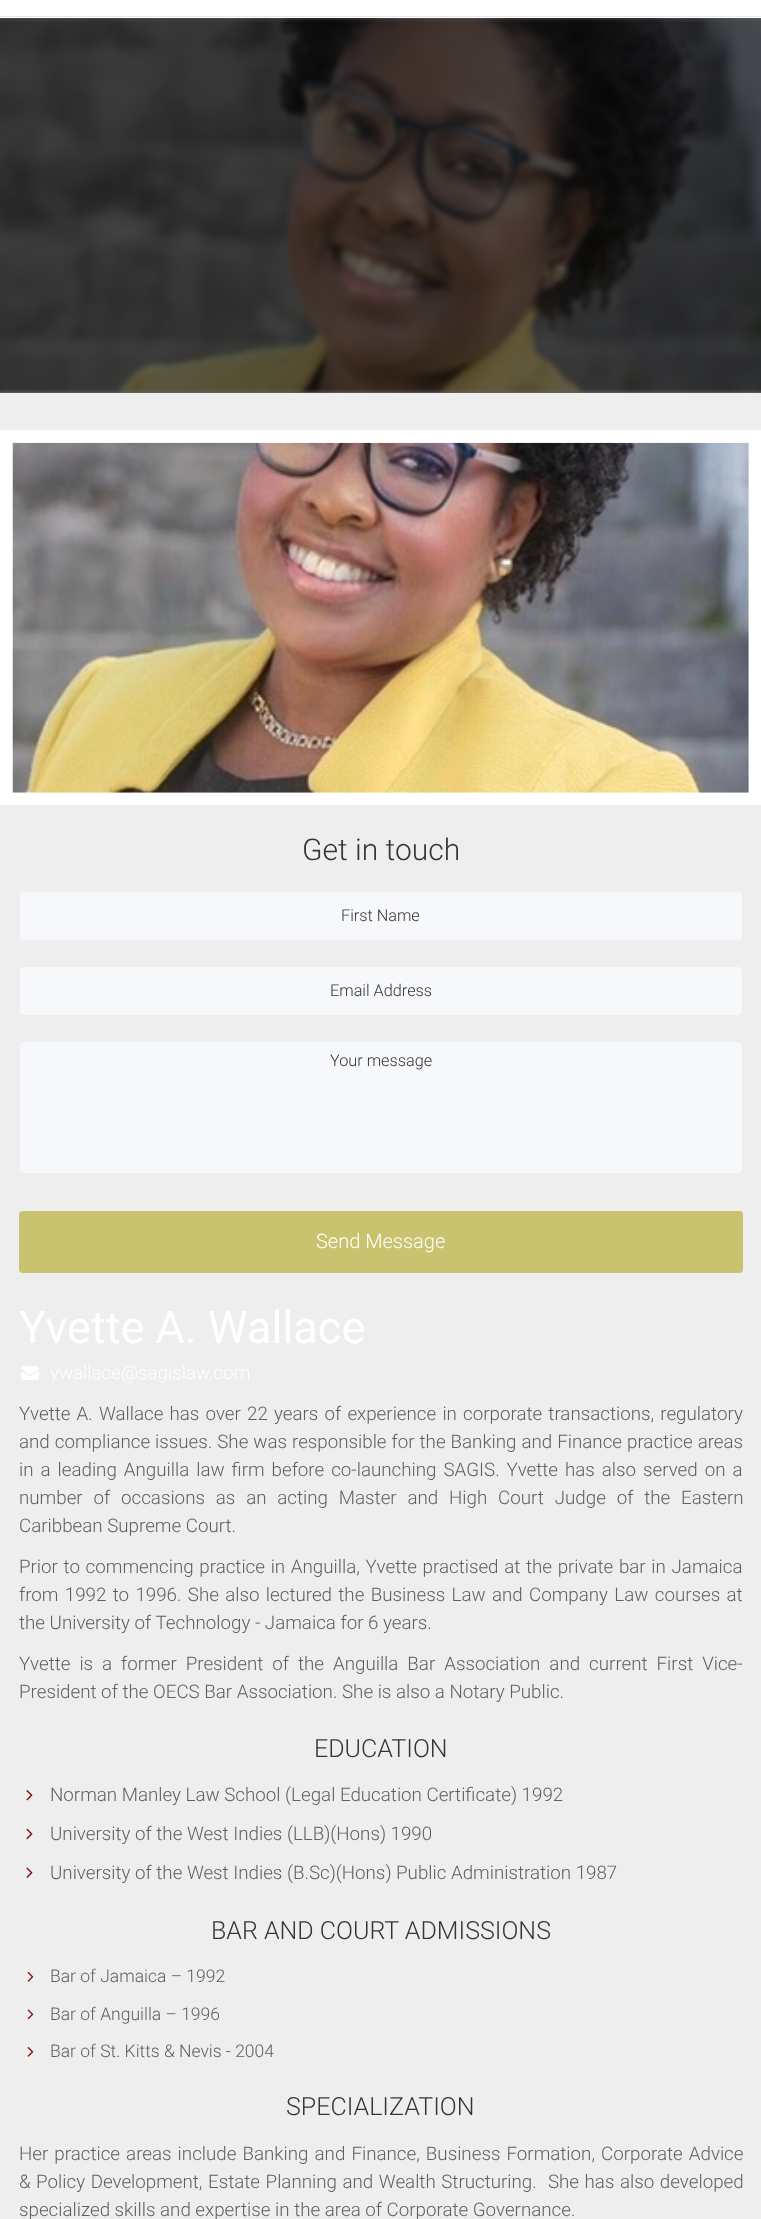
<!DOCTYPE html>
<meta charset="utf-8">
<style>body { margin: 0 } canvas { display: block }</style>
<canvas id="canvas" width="761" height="2219"></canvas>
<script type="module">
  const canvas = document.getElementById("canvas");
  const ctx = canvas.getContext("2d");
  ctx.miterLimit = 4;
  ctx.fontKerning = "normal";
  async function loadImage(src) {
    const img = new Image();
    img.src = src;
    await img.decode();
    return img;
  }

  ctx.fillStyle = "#666666";
  ctx.fillRect(0, 0, 761, 2219);
  ctx.fillStyle = "#ffffff";
  ctx.fillRect(0, 0, 761, 18);
  ctx.fillStyle = "#e8e8ec";
  ctx.fillRect(0, 16, 761, 1);
  ctx.drawImage(await loadImage("img1.png"), 0, 18, 761, 375);
  ctx.fillStyle = "#eeeeee";
  ctx.fillRect(0, 393, 761, 1826);
  ctx.strokeStyle = "#ffffff";
  ctx.lineWidth = 13;
  ctx.strokeRect(6.5, 436.5, 748, 362);
  ctx.drawImage(await loadImage("img2.png"), 12, 442, 737, 351);
  ctx.font = "300 30px Roboto";
  ctx.fillStyle = "#34343c";
  ctx.fillText("Get in touch", 302, 860);
  ctx.fillStyle = "#f7f8fa";
  ctx.beginPath();
  ctx.roundRect(19.5, 891.5, 723, 49, 4.5);
  ctx.fill();
  ctx.strokeStyle = "#ebeef6";
  ctx.lineWidth = 1;
  ctx.stroke();
  ctx.font = "300 16.25px Roboto";
  ctx.fillStyle = "#34343c";
  ctx.fillText("First Name", 341, 921);
  ctx.fillStyle = "#f7f8fa";
  ctx.beginPath();
  ctx.roundRect(19.5, 966.5, 723, 49, 4.5);
  ctx.fill();
  ctx.stroke();
  ctx.fillStyle = "#34343c";
  ctx.fillText("Email Address", 330, 996);
  ctx.fillStyle = "#f7f8fa";
  ctx.beginPath();
  ctx.roundRect(19.5, 1041.5, 723, 132, 4.5);
  ctx.fill();
  ctx.stroke();
  ctx.fillStyle = "#34343c";
  ctx.fillText("Your message", 330, 1066);
  ctx.fillStyle = "#c9c36f";
  ctx.beginPath();
  ctx.roundRect(19, 1211, 724, 62, 4);
  ctx.fill();
  ctx.font = "300 20px Roboto";
  ctx.fillStyle = "#ffffff";
  ctx.fillText("Send Message", 316, 1248);
  ctx.font = "45px Roboto";
  ctx.fillText("Yvette A. Wallace", 19, 1343);
  ctx.drawImage(await loadImage("img3.png"), 21, 1366, 18, 14);
  ctx.font = "300 18.75px Roboto";
  ctx.fillText("ywallace@sagislaw.com", 50, 1379);
  ctx.wordSpacing = "1.6px";
  ctx.fillStyle = "#606060";
  ctx.fillText("Yvette A. Wallace has over 22 years of experience in corporate transactions, regulatory", 19, 1420);
  ctx.wordSpacing = "0.4px";
  ctx.fillText("and compliance issues. She was responsible for the Banking and Finance practice areas", 19, 1448);
  ctx.wordSpacing = "2.4px";
  ctx.fillText("in a leading Anguilla law firm before co-launching SAGIS. Yvette has also served on a", 19, 1476);
  ctx.wordSpacing = "6.25px";
  ctx.fillText("number of occasions as an acting Master and High Court Judge of the Eastern", 19, 1504);
  ctx.wordSpacing = "0px";
  ctx.fillText("Caribbean Supreme Court.", 19, 1532);
  ctx.wordSpacing = "1.1px";
  ctx.fillText("Prior to commencing practice in Anguilla, Yvette practised at the private bar in Jamaica", 19, 1573);
  ctx.wordSpacing = "1.75px";
  ctx.fillText("from 1992 to 1996. She also lectured the Business Law and Company Law courses at", 19, 1601);
  ctx.wordSpacing = "0px";
  ctx.fillText("the University of Technology - Jamaica for 6 years.", 19, 1629);
  ctx.wordSpacing = "4.4px";
  ctx.fillText("Yvette is a former President of the Anguilla Bar Association and current First Vice-", 19, 1670);
  ctx.wordSpacing = "0px";
  ctx.fillText("President of the OECS Bar Association. She is also a Notary Public.", 19, 1698);
  ctx.font = "300 25px Roboto";
  ctx.fillStyle = "#34343c";
  ctx.fillText("EDUCATION", 314, 1757);
  ctx.drawImage(await loadImage("img4.png"), 26, 1790, 7, 11);
  ctx.font = "300 18.75px Roboto";
  ctx.fillStyle = "#606060";
  ctx.fillText("Norman Manley Law School (Legal Education Certificate) 1992", 50, 1801);
  ctx.drawImage(await loadImage("img5.png"), 26, 1828, 7, 12);
  ctx.fillText("University of the West Indies (LLB)(Hons) 1990", 50, 1840);
  ctx.drawImage(await loadImage("img6.png"), 26, 1867, 7, 11);
  ctx.fillText("University of the West Indies (B.Sc)(Hons) Public Administration 1987", 50, 1879);
  ctx.font = "300 25px Roboto";
  ctx.fillStyle = "#34343c";
  ctx.fillText("BAR AND COURT ADMISSIONS", 211, 1939);
  ctx.drawImage(await loadImage("img7.png"), 27, 1972, 7, 10);
  ctx.font = "300 17.5px Roboto";
  ctx.fillStyle = "#606060";
  ctx.fillText("Bar of Jamaica – 1992", 50, 1982);
  ctx.drawImage(await loadImage("img8.png"), 27, 2009, 7, 11);
  ctx.fillText("Bar of Anguilla – 1996", 50, 2020);
  ctx.drawImage(await loadImage("img7.png"), 27, 2047, 7, 10);
  ctx.fillText("Bar of St. Kitts & Nevis - 2004", 50, 2057);
  ctx.font = "300 25px Roboto";
  ctx.fillStyle = "#34343c";
  ctx.fillText("SPECIALIZATION", 286, 2115);
  ctx.wordSpacing = "1.5px";
  ctx.font = "300 18.75px Roboto";
  ctx.fillStyle = "#606060";
  ctx.fillText("Her practice areas include Banking and Finance, Business Formation, Corporate Advice", 19, 2160);
  ctx.wordSpacing = "1px";
  ctx.fillText("& Policy Development, Estate Planning and Wealth Structuring.  She has also developed", 19, 2188);
  ctx.wordSpacing = "0px";
  ctx.fillText("specialized skills and expertise in the area of Corporate Governance.", 19, 2216);
</script>
